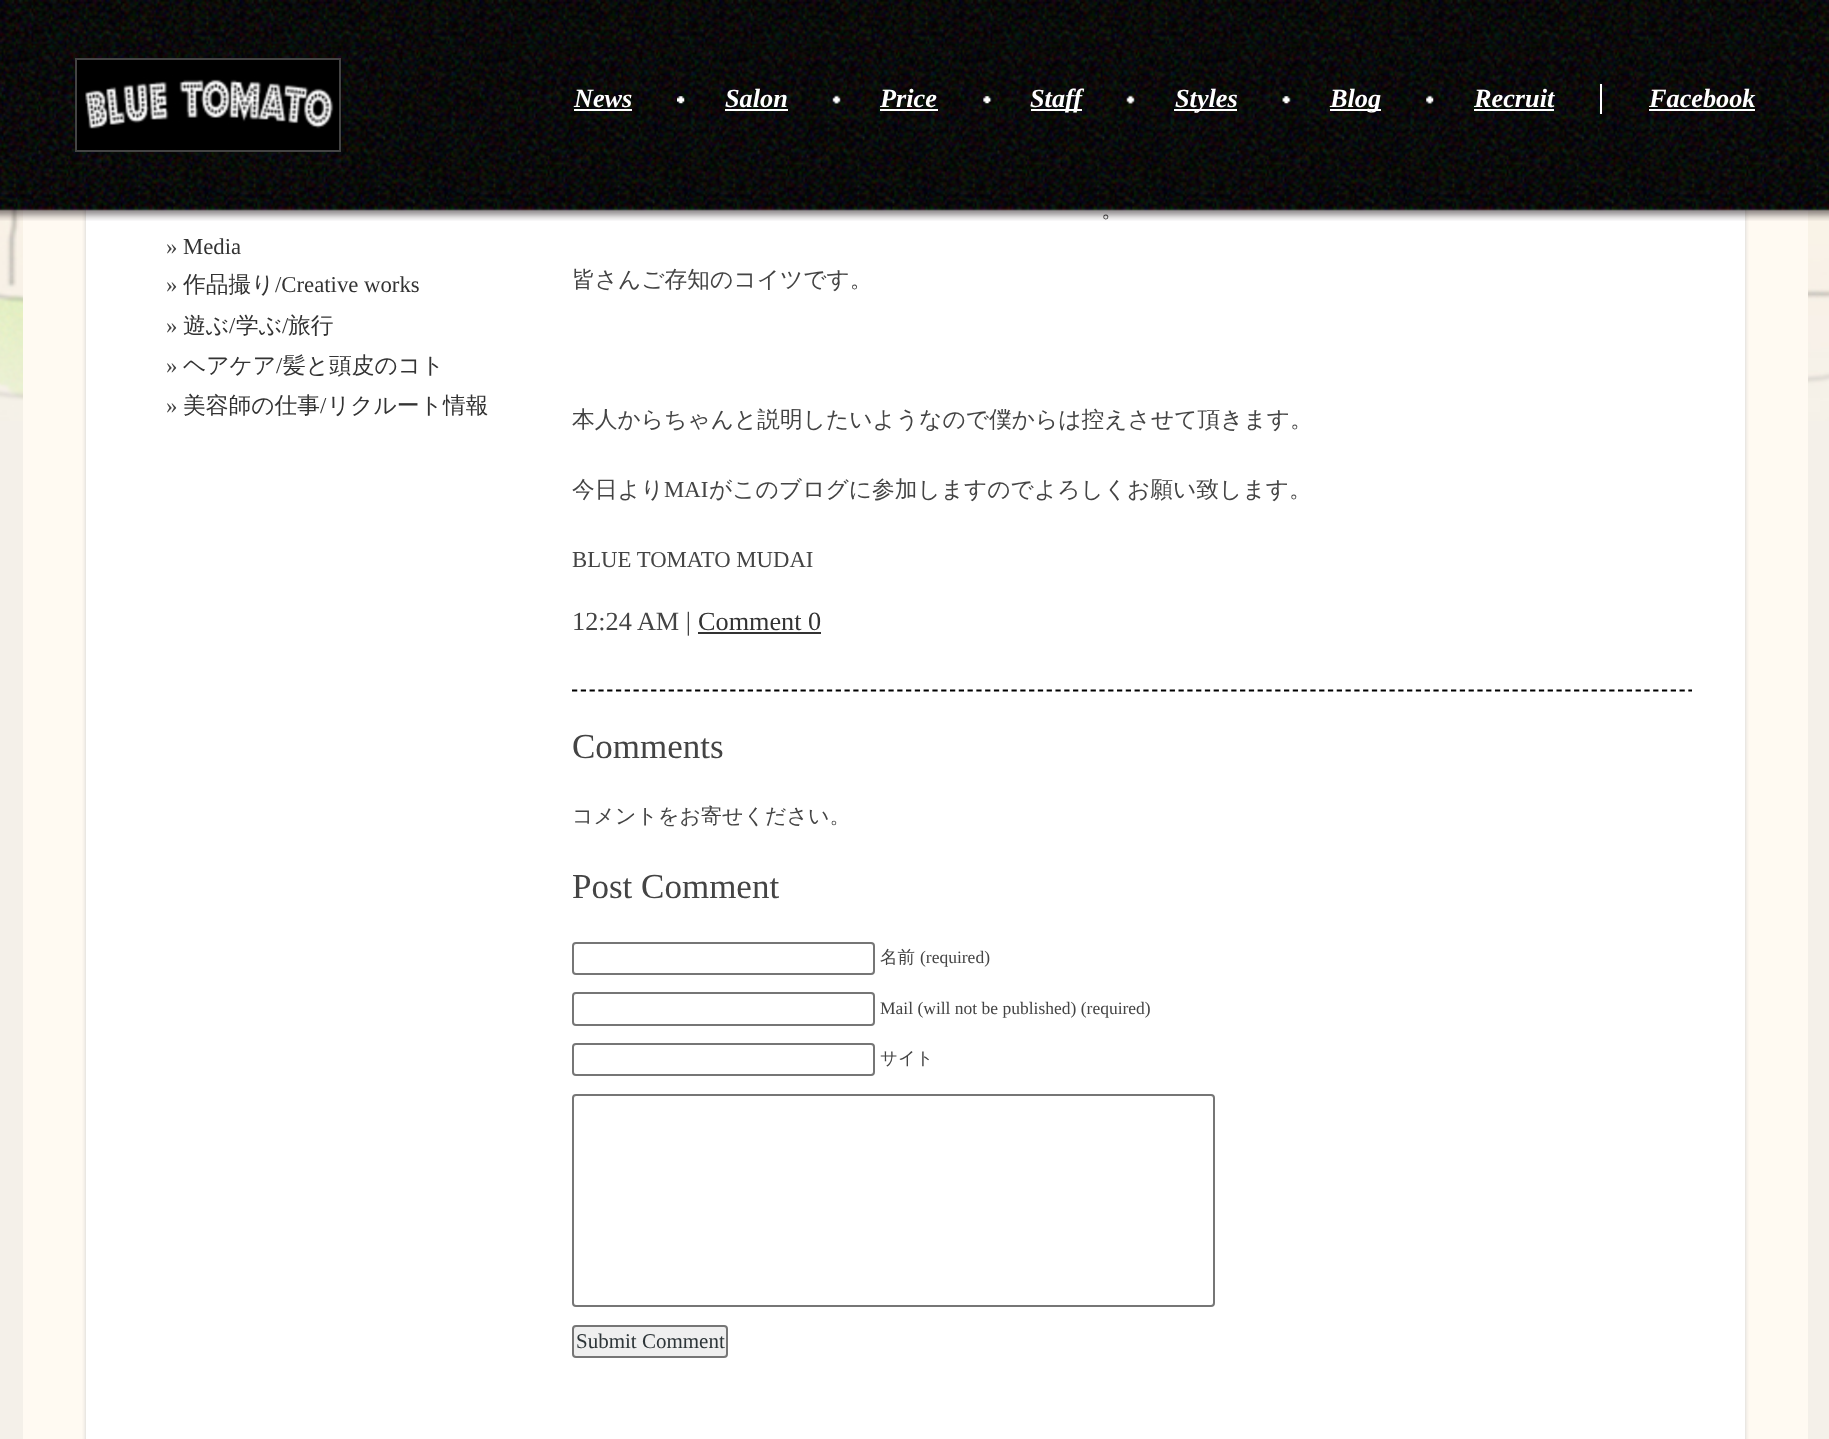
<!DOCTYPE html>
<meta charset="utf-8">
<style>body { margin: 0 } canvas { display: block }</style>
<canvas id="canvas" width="1829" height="1439"></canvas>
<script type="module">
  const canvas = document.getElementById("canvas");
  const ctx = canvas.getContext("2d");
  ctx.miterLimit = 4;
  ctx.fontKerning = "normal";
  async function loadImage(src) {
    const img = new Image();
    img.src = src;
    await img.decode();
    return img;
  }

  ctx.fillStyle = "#f4f0e9";
  ctx.fillRect(0, 0, 1829, 1439);
  ctx.drawImage(await loadImage("img9.png"), 0, 208, 1829, 213);
  ctx.fillStyle = "#fffaf2";
  ctx.fillRect(23, 208, 1785, 1231);
  ctx.fillStyle = "#cccccc";
  ctx.filter = "blur(2px)";
  ctx.beginPath();
  ctx.rect(86, -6, 1659, 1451);
  ctx.fill();
  ctx.filter = "none";
  ctx.fillStyle = "#ffffff";
  ctx.fillRect(86, 208, 1659, 1231);
  ctx.font = "500 22.75px WenQuanYi Zen Hei";
  ctx.fillStyle = "#444444";
  ctx.fillText("。", 1101, 217);
  ctx.drawImage(await loadImage("img1.png"), 0, 0, 1829, 221);
  ctx.drawImage(await loadImage("img2.png"), 77, 59, 265, 92);
  ctx.strokeStyle = "#444444";
  ctx.lineWidth = 2;
  ctx.strokeRect(76, 59, 264, 92);
  ctx.font = "italic bold 26.25px Liberation Serif";
  ctx.fillStyle = "#ffffff";
  ctx.fillText("News", 574, 107);
  ctx.fillRect(574, 109, 58, 2);
  ctx.drawImage(await loadImage("img3.png"), 677, 96, 8, 8);
  ctx.fillText("Salon", 725, 107);
  ctx.fillRect(725, 109, 63, 2);
  ctx.drawImage(await loadImage("img4.png"), 832, 95, 9, 9);
  ctx.fillText("Price", 880, 107);
  ctx.fillRect(880, 109, 58, 2);
  ctx.drawImage(await loadImage("img5.png"), 983, 96, 9, 8);
  ctx.fillRect(1031, 109, 51, 2);
  ctx.fillText("Staff", 1030, 107);
  ctx.drawImage(await loadImage("img6.png"), 1126, 95, 9, 9);
  ctx.fillRect(1174, 109, 63, 2);
  ctx.fillText("Styles", 1175, 107);
  ctx.drawImage(await loadImage("img7.png"), 1282, 96, 9, 8);
  ctx.fillRect(1330, 109, 51, 2);
  ctx.fillText("Blog", 1330, 107);
  ctx.drawImage(await loadImage("img8.png"), 1426, 95, 8, 9);
  ctx.fillText("Recruit", 1474, 107);
  ctx.fillRect(1474, 109, 80, 2);
  ctx.fillRect(1600, 84, 2, 30);
  ctx.fillText("Facebook", 1649, 107);
  ctx.fillRect(1649, 109, 106, 2);
  ctx.font = "22.75px Liberation Serif";
  ctx.fillStyle = "#444444";
  ctx.fillText("»", 166, 254);
  ctx.fillStyle = "#333333";
  ctx.fillText("Media", 183, 254);
  ctx.fillStyle = "#444444";
  ctx.fillText("»", 166, 292);
  ctx.font = "500 22.75px WenQuanYi Zen Hei";
  ctx.fillStyle = "#333333";
  ctx.fillText("作品撮り", 183, 292);
  ctx.font = "22.75px Liberation Serif";
  ctx.fillText("/Creative works", 275, 292);
  ctx.fillStyle = "#444444";
  ctx.fillText("»", 166, 333);
  ctx.font = "500 22.75px WenQuanYi Zen Hei";
  ctx.fillStyle = "#333333";
  ctx.fillText("遊ぶ", 183, 333);
  ctx.font = "22.75px Liberation Serif";
  ctx.fillText("/", 229, 333);
  ctx.font = "500 22.75px WenQuanYi Zen Hei";
  ctx.fillText("学ぶ", 236, 333);
  ctx.font = "22.75px Liberation Serif";
  ctx.fillText("/", 282, 333);
  ctx.font = "500 22.75px WenQuanYi Zen Hei";
  ctx.fillText("旅行", 288, 333);
  ctx.font = "22.75px Liberation Serif";
  ctx.fillStyle = "#444444";
  ctx.fillText("»", 166, 373);
  ctx.font = "500 22.75px WenQuanYi Zen Hei";
  ctx.fillStyle = "#333333";
  ctx.fillText("ヘアケア", 183, 373);
  ctx.font = "22.75px Liberation Serif";
  ctx.fillText("/", 276, 373);
  ctx.font = "500 22.75px WenQuanYi Zen Hei";
  ctx.fillText("髪と頭皮のコト", 283, 373);
  ctx.font = "22.75px Liberation Serif";
  ctx.fillStyle = "#444444";
  ctx.fillText("»", 166, 413);
  ctx.font = "500 22.75px WenQuanYi Zen Hei";
  ctx.fillStyle = "#333333";
  ctx.fillText("美容師の仕事", 183, 413);
  ctx.font = "22.75px Liberation Serif";
  ctx.fillText("/", 320, 413);
  ctx.font = "500 22.75px WenQuanYi Zen Hei";
  ctx.fillText("リクルート情報", 327, 413);
  ctx.fillStyle = "#444444";
  ctx.fillText("皆さんご存知のコイツです。", 572, 287);
  ctx.fillText("本人からちゃんと説明したいようなので僕からは控えさせて頂きます。", 572, 427);
  ctx.fillText("今日より", 572, 497);
  ctx.font = "22.75px Liberation Serif";
  ctx.fillText("MAI", 664, 497);
  ctx.font = "500 22.75px WenQuanYi Zen Hei";
  ctx.fillText("がこのブログに参加しますのでよろしくお願い致します。", 709, 497);
  ctx.font = "22.75px Liberation Serif";
  ctx.fillText("BLUE TOMATO MUDAI", 572, 567);
  ctx.font = "26.25px Liberation Serif";
  ctx.fillText("12:24 AM |", 572, 630);
  ctx.fillStyle = "#333333";
  ctx.fillText("Comment 0", 698, 630);
  ctx.fillRect(698, 632, 123, 2);
  ctx.beginPath();
  ctx.moveTo(572, 690.5);
  ctx.lineTo(1692, 690.5);
  ctx.strokeStyle = "#000000";
  ctx.lineWidth = 1.8;
  ctx.setLineDash([5.25, 3.54]);
  ctx.stroke();
  ctx.font = "35px Liberation Serif";
  ctx.fillStyle = "#444444";
  ctx.fillText("Comments", 572, 758);
  ctx.font = "500 21px WenQuanYi Zen Hei";
  ctx.fillText("コメントをお寄せください。", 572, 823);
  ctx.font = "35px Liberation Serif";
  ctx.fillText("Post Comment", 572, 898);
  ctx.beginPath();
  ctx.roundRect(573, 943, 301, 31, 3);
  ctx.strokeStyle = "#767676";
  ctx.lineWidth = 2;
  ctx.setLineDash([]);
  ctx.stroke();
  ctx.font = "500 17.5px WenQuanYi Zen Hei";
  ctx.fillText("名前", 880, 963);
  ctx.font = "17.5px Liberation Serif";
  ctx.fillText("(required)", 920, 963);
  ctx.beginPath();
  ctx.roundRect(573, 993, 301, 32, 3);
  ctx.stroke();
  ctx.fillText("Mail (will not be published) (required)", 880, 1014);
  ctx.beginPath();
  ctx.roundRect(573, 1044, 301, 31, 3);
  ctx.stroke();
  ctx.font = "500 17.5px WenQuanYi Zen Hei";
  ctx.fillText("サイト", 880, 1064);
  ctx.beginPath();
  ctx.roundRect(573, 1095, 641, 211, 3);
  ctx.stroke();
  ctx.fillStyle = "#efefef";
  ctx.beginPath();
  ctx.roundRect(573, 1326, 154, 31, 3);
  ctx.fill();
  ctx.stroke();
  ctx.font = "21px Liberation Serif";
  ctx.fillStyle = "#2d3538";
  ctx.fillText("Submit Comment", 576, 1348);
</script>
